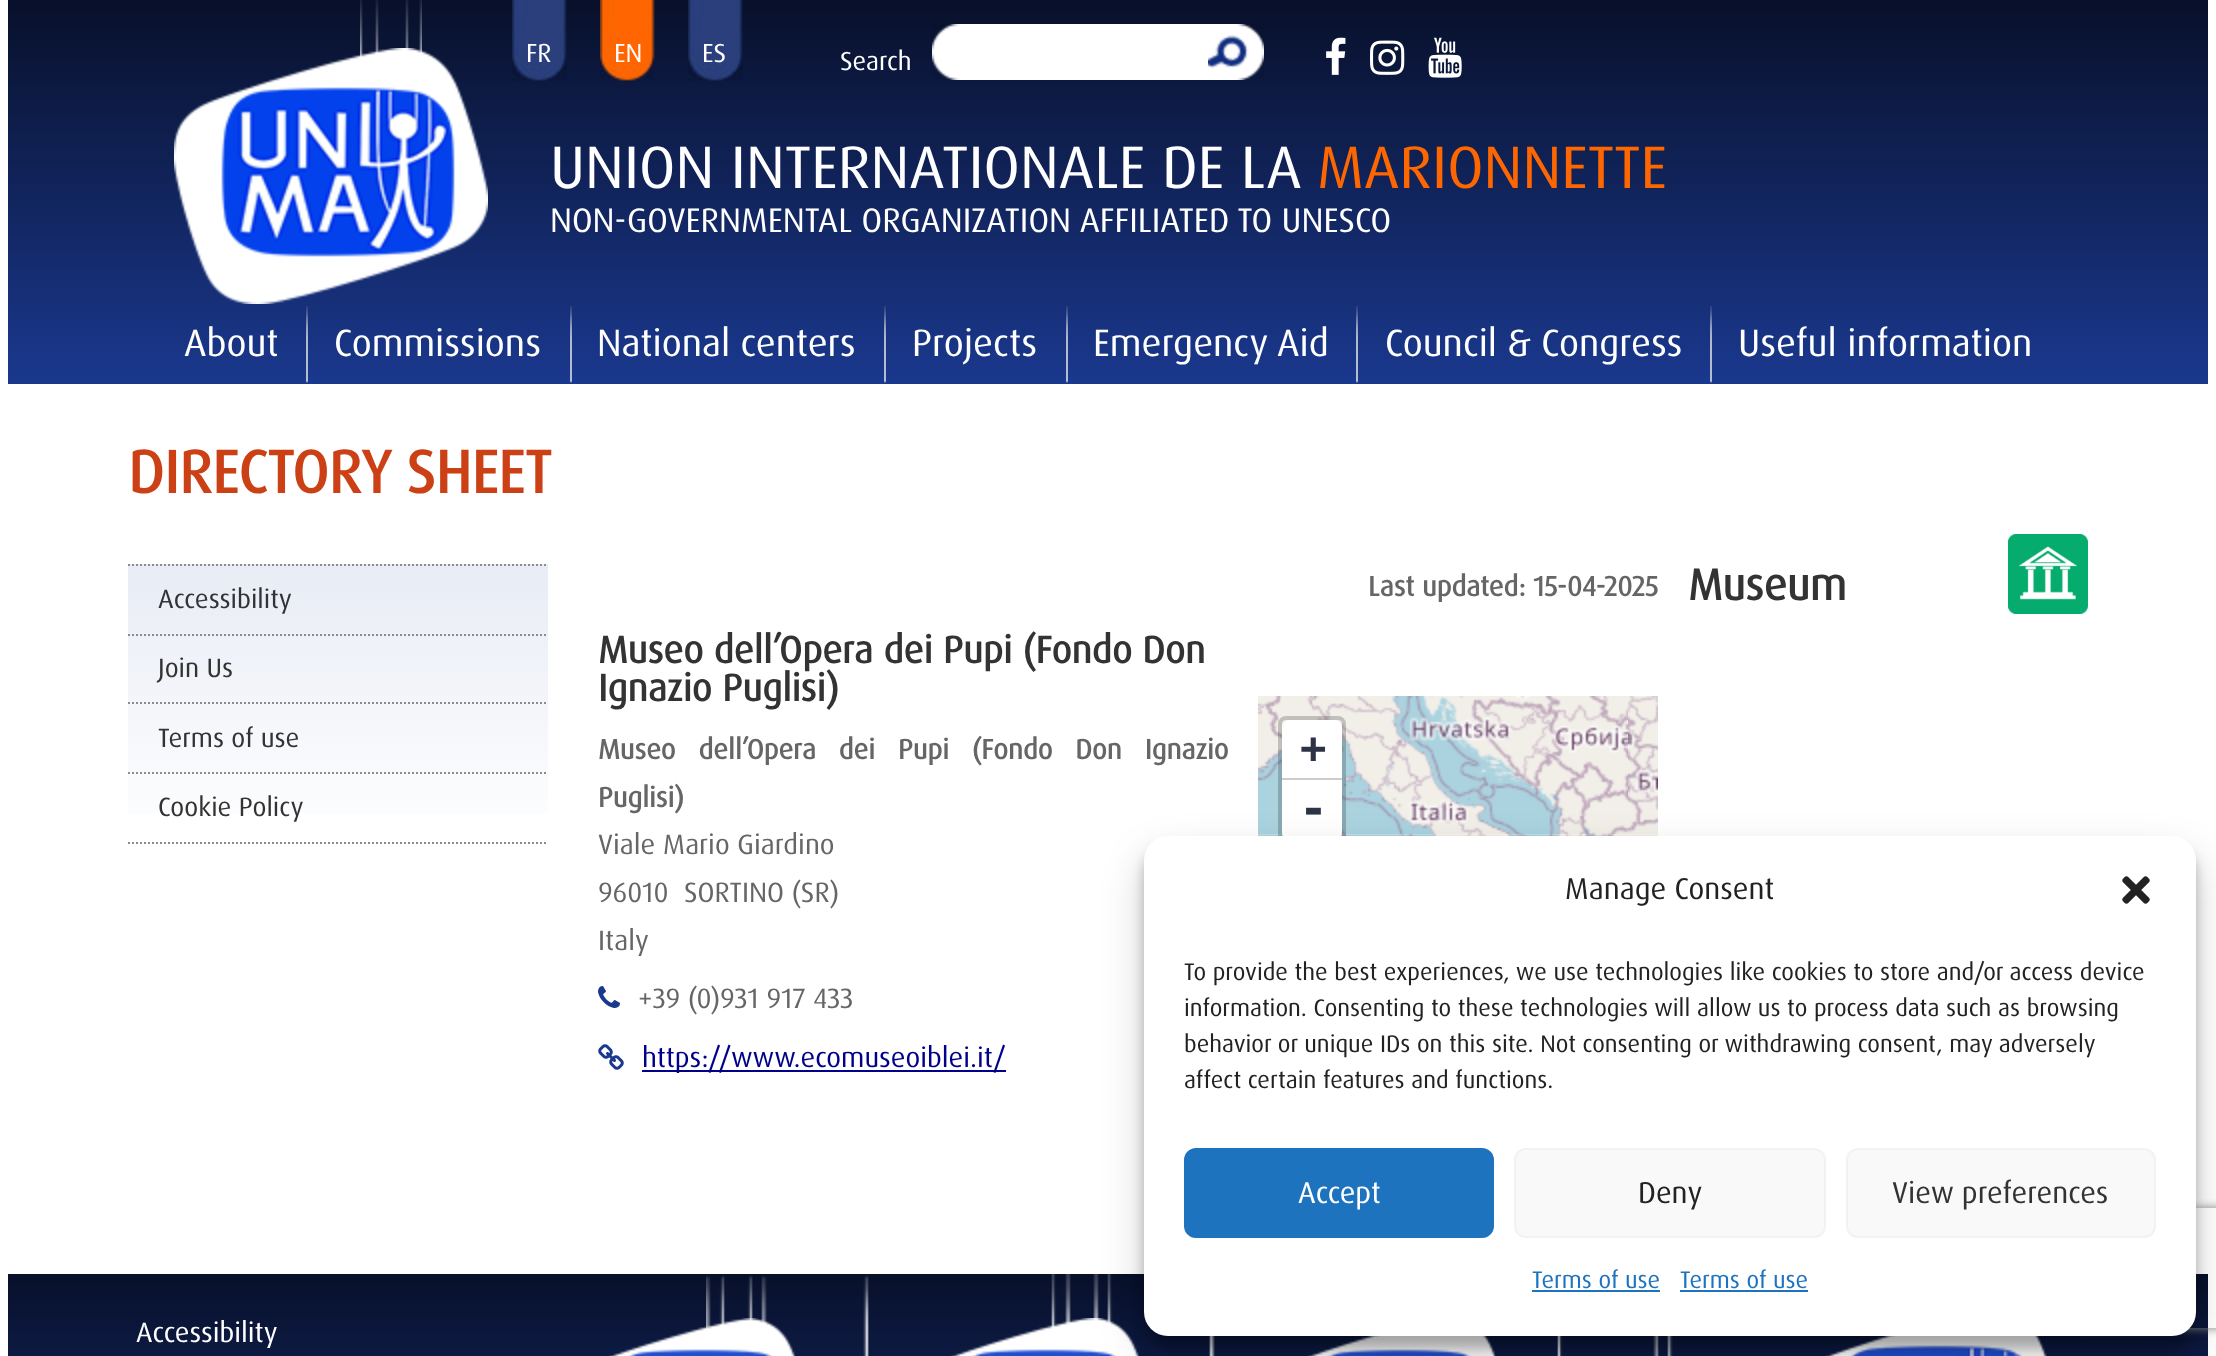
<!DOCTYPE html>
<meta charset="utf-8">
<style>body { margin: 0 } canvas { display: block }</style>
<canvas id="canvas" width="2216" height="1356"></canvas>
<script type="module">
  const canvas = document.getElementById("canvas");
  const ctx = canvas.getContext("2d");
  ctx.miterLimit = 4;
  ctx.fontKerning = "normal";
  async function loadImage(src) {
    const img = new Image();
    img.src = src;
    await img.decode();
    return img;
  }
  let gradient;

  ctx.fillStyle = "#ffffff";
  ctx.fillRect(0, 0, 2216, 1356);
  gradient = ctx.createLinearGradient(1108, 0, 1108, 384);
  gradient.addColorStop(0, "#08102a");
  gradient.addColorStop(1, "#1a388e");
  ctx.fillStyle = gradient;
  ctx.fillRect(8, 0, 2200, 384);
  ctx.drawImage(await loadImage("img1.png"), 512, 0, 55, 81);
  ctx.font = "26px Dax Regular";
  ctx.fillStyle = "#ffffff";
  ctx.fillText("FR", 526, 62);
  ctx.drawImage(await loadImage("img2.png"), 600, 0, 55, 81);
  ctx.fillText("EN", 614, 62);
  ctx.drawImage(await loadImage("img1.png"), 688, 0, 55, 81);
  ctx.fillText("ES", 702, 62);
  ctx.fillText("Search", 840, 70);
  ctx.drawImage(await loadImage("img3.png"), 932, 24, 28, 56);
  ctx.fillRect(960, 24, 248, 56);
  ctx.drawImage(await loadImage("img4.png"), 1208, 24, 56, 56);
  ctx.drawImage(await loadImage("img5.png"), 1326, 37, 20, 38);
  ctx.drawImage(await loadImage("img6.png"), 1370, 40, 35, 35);
  ctx.drawImage(await loadImage("img7.png"), 1428, 37, 34, 41);
  ctx.drawImage(await loadImage("img8.png"), 360, 0, 62, 58);
  ctx.drawImage(await loadImage("img9.png"), 174, 48, 314, 256);
  ctx.font = "60px Dax Regular";
  ctx.fillText("UNION INTERNATIONALE DE LA", 550, 188);
  ctx.fillStyle = "#fe6600";
  ctx.fillText("MARIONNETTE", 1317, 188);
  ctx.font = "34px Dax Regular";
  ctx.fillStyle = "#ffffff";
  ctx.fillText("NON-GOVERNMENTAL ORGANIZATION AFFILIATED TO UNESCO", 550, 232);
  ctx.font = "38px Dax Regular";
  ctx.fillText("About", 184, 356);
  ctx.drawImage(await loadImage("img10.png"), 306, 306, 2, 77);
  ctx.fillText("Commissions", 334, 356);
  ctx.drawImage(await loadImage("img10.png"), 570, 306, 2, 77);
  ctx.fillText("National centers", 597, 356);
  ctx.drawImage(await loadImage("img10.png"), 884, 306, 2, 77);
  ctx.fillText("Projects", 912, 356);
  ctx.drawImage(await loadImage("img10.png"), 1066, 306, 2, 77);
  ctx.fillText("Emergency Aid", 1093, 356);
  ctx.drawImage(await loadImage("img10.png"), 1356, 306, 2, 77);
  ctx.fillText("Council & Congress", 1385, 356);
  ctx.drawImage(await loadImage("img10.png"), 1710, 306, 2, 77);
  ctx.fillText("Useful information", 1738, 356);
  ctx.font = "bold 60.25px Dax Regular";
  ctx.fillStyle = "#cc4015";
  ctx.fillText("DIRECTORY SHEET", 128, 493);
  gradient = ctx.createLinearGradient(338, 564, 338, 844);
  gradient.addColorStop(0, "#e8ecf5");
  gradient.addColorStop(1, "#ffffff");
  ctx.fillStyle = gradient;
  ctx.fillRect(128, 564, 420, 250);
  ctx.beginPath();
  ctx.moveTo(128, 565);
  ctx.lineTo(548, 565);
  ctx.strokeStyle = "#8b8c8c";
  ctx.lineWidth = 2;
  ctx.setLineDash([2, 2]);
  ctx.stroke();
  ctx.beginPath();
  ctx.moveTo(128, 635);
  ctx.lineTo(548, 635);
  ctx.stroke();
  ctx.font = "26.5px Dax Regular";
  ctx.fillStyle = "#333333";
  ctx.fillText("Accessibility", 158, 608);
  ctx.beginPath();
  ctx.moveTo(128, 703);
  ctx.lineTo(548, 703);
  ctx.stroke();
  ctx.fillText("Join Us", 158, 677);
  ctx.beginPath();
  ctx.moveTo(128, 773);
  ctx.lineTo(548, 773);
  ctx.stroke();
  ctx.fillText("Terms of use", 158, 747);
  ctx.beginPath();
  ctx.moveTo(128, 843);
  ctx.lineTo(548, 843);
  ctx.stroke();
  ctx.fillText("Cookie Policy", 158, 816);
  ctx.font = "bold 28px Dax Regular";
  ctx.fillStyle = "#666666";
  ctx.fillText("Last updated: 15-04-2025", 1368, 596);
  ctx.font = "bold 38px Dax Regular";
  ctx.fillStyle = "#333333";
  ctx.fillText("Museo dell’Opera dei Pupi (Fondo Don", 598, 663);
  ctx.fillText("Ignazio Puglisi)", 598, 701);
  ctx.wordSpacing = "15.25px";
  ctx.font = "bold 28px Dax Regular";
  ctx.fillStyle = "#666666";
  ctx.fillText("Museo dell’Opera dei Pupi (Fondo Don Ignazio", 598, 759);
  ctx.wordSpacing = "0px";
  ctx.fillText("Puglisi)", 598, 807);
  ctx.font = "28px Dax Regular";
  ctx.fillText("Viale Mario Giardino", 598, 854);
  ctx.fillText("96010", 598, 902);
  ctx.fillText("SORTINO (SR)", 684, 902);
  ctx.fillText("Italy", 598, 950);
  ctx.drawImage(await loadImage("img11.png"), 598, 986, 22, 22);
  ctx.fillText("+39 (0)931 917 433", 638, 1008);
  ctx.drawImage(await loadImage("img12.png"), 598, 1044, 26, 26);
  ctx.fillStyle = "#00008b";
  ctx.fillRect(642, 1070, 364, 2);
  ctx.fillText("https://www.ecomuseoiblei.it/", 642, 1067);
  ctx.drawImage(await loadImage("img13.png"), 1258, 696, 370, 138);
  ctx.drawImage(await loadImage("img14.png"), 1628, 696, 30, 138);
  ctx.drawImage(await loadImage("img15.png"), 1258, 833, 370, 3);
  ctx.drawImage(await loadImage("img16.png"), 1628, 834, 30, 2);
  ctx.beginPath();
  ctx.roundRect(1280, 718, 64, 124, 6);
  ctx.strokeStyle = "rgba(0, 0, 0, 0.2)";
  ctx.lineWidth = 4;
  ctx.setLineDash([]);
  ctx.stroke();
  ctx.fillStyle = "#ffffff";
  ctx.beginPath();
  ctx.roundRect(1282, 720, 60, 60, [8, 8, 0, 0]);
  ctx.fill();
  ctx.fillStyle = "#cccccc";
  ctx.fillRect(1282, 778, 60, 2);
  ctx.font = "bold 44px DejaVu Sans Mono";
  ctx.fillStyle = "#2c3345";
  ctx.fillText("+", 1300, 763);
  ctx.fillStyle = "#ffffff";
  ctx.beginPath();
  ctx.roundRect(1282, 780, 60, 60, [0, 0, 8, 8]);
  ctx.fill();
  ctx.font = "bold 48px DejaVu Sans Mono";
  ctx.fillStyle = "#2c3345";
  ctx.fillText("-", 1299, 825);
  ctx.font = "bold 44px Dax Regular";
  ctx.fillStyle = "#333333";
  ctx.fillText("Museum", 1688, 600);
  ctx.drawImage(await loadImage("img17.png"), 2008, 534, 80, 80);
  gradient = ctx.createLinearGradient(1108, 1274, 1108, 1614);
  gradient.addColorStop(0, "#08102a");
  gradient.addColorStop(1, "#1a388e");
  ctx.fillStyle = gradient;
  ctx.fillRect(8, 1274, 2200, 82);
  ctx.font = "28px Dax Regular";
  ctx.fillStyle = "#ffffff";
  ctx.fillText("Accessibility", 136, 1342);
  ctx.drawImage(await loadImage("img19.png"), 706, 1274, 967, 82);
  ctx.drawImage(await loadImage("img18.png"), 608, 1318, 188, 38);
  ctx.drawImage(await loadImage("img20.png"), 950, 1318, 189, 38);
  ctx.drawImage(await loadImage("img21.png"), 1307, 1336, 190, 20);
  ctx.drawImage(await loadImage("img22.png"), 1825, 1336, 222, 20);
  ctx.fillStyle = "rgba(0, 0, 0, 0.23)";
  ctx.filter = "blur(6px)";
  ctx.beginPath();
  ctx.roundRect(1144, 848, 1052, 500, 24);
  ctx.fill();
  ctx.filter = "none";
  ctx.fillStyle = "rgba(0, 0, 0, 0.19)";
  ctx.filter = "blur(20px)";
  ctx.beginPath();
  ctx.roundRect(1144, 856, 1052, 500, 24);
  ctx.fill();
  ctx.filter = "none";
  ctx.save();
  ctx.beginPath();
  ctx.moveTo(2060, 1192);
  ctx.lineTo(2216, 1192);
  ctx.lineTo(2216, 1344);
  ctx.lineTo(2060, 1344);
  ctx.closePath();
  ctx.moveTo(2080, 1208);
  ctx.lineTo(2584, 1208);
  ctx.bezierCurveTo(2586, 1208, 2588, 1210, 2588, 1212);
  ctx.lineTo(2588, 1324);
  ctx.bezierCurveTo(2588, 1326, 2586, 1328, 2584, 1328);
  ctx.lineTo(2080, 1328);
  ctx.bezierCurveTo(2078, 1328, 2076, 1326, 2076, 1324);
  ctx.lineTo(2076, 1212);
  ctx.bezierCurveTo(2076, 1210, 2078, 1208, 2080, 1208);
  ctx.closePath();
  ctx.clip("evenodd");
  ctx.fillStyle = "#808080";
  ctx.filter = "blur(5px)";
  ctx.beginPath();
  ctx.roundRect(2076, 1208, 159, 120, 4);
  ctx.fill();
  ctx.filter = "none";
  ctx.restore();
  ctx.fillStyle = "#ffffff";
  ctx.beginPath();
  ctx.roundRect(1144, 836, 1052, 500, 24);
  ctx.fill();
  ctx.font = "30px Dax Regular";
  ctx.fillStyle = "#222222";
  ctx.fillText("Manage Consent", 1565, 899);
  ctx.drawImage(await loadImage("img23.png"), 2122, 876, 28, 28);
  ctx.font = "24px Dax Regular";
  ctx.fillText("To provide the best experiences, we use technologies like cookies to store and/or access device", 1184, 980);
  ctx.fillText("information. Consenting to these technologies will allow us to process data such as browsing", 1184, 1016);
  ctx.fillText("behavior or unique IDs on this site. Not consenting or withdrawing consent, may adversely", 1184, 1052);
  ctx.fillText("affect certain features and functions.", 1184, 1088);
  ctx.fillStyle = "#1e73be";
  ctx.beginPath();
  ctx.roundRect(1185, 1149, 308, 88, 11);
  ctx.fill();
  ctx.strokeStyle = "#1e73be";
  ctx.lineWidth = 2;
  ctx.stroke();
  ctx.font = "30px Dax Regular";
  ctx.fillStyle = "#ffffff";
  ctx.fillText("Accept", 1298, 1203);
  ctx.fillStyle = "#f9f9f9";
  ctx.beginPath();
  ctx.roundRect(1515, 1149, 310, 88, 11);
  ctx.fill();
  ctx.strokeStyle = "#f2f2f2";
  ctx.stroke();
  ctx.fillStyle = "#222222";
  ctx.fillText("Deny", 1638, 1203);
  ctx.fillStyle = "#f9f9f9";
  ctx.beginPath();
  ctx.roundRect(1847, 1149, 308, 88, 11);
  ctx.fill();
  ctx.stroke();
  ctx.fillStyle = "#333333";
  ctx.fillText("View preferences", 1892, 1203);
  ctx.font = "24px Dax Regular";
  ctx.fillStyle = "#1e73be";
  ctx.fillText("Terms of use", 1532, 1288);
  ctx.fillRect(1532, 1290, 128, 2);
  ctx.fillText("Terms of use", 1680, 1288);
  ctx.fillRect(1680, 1290, 128, 2);
</script>
